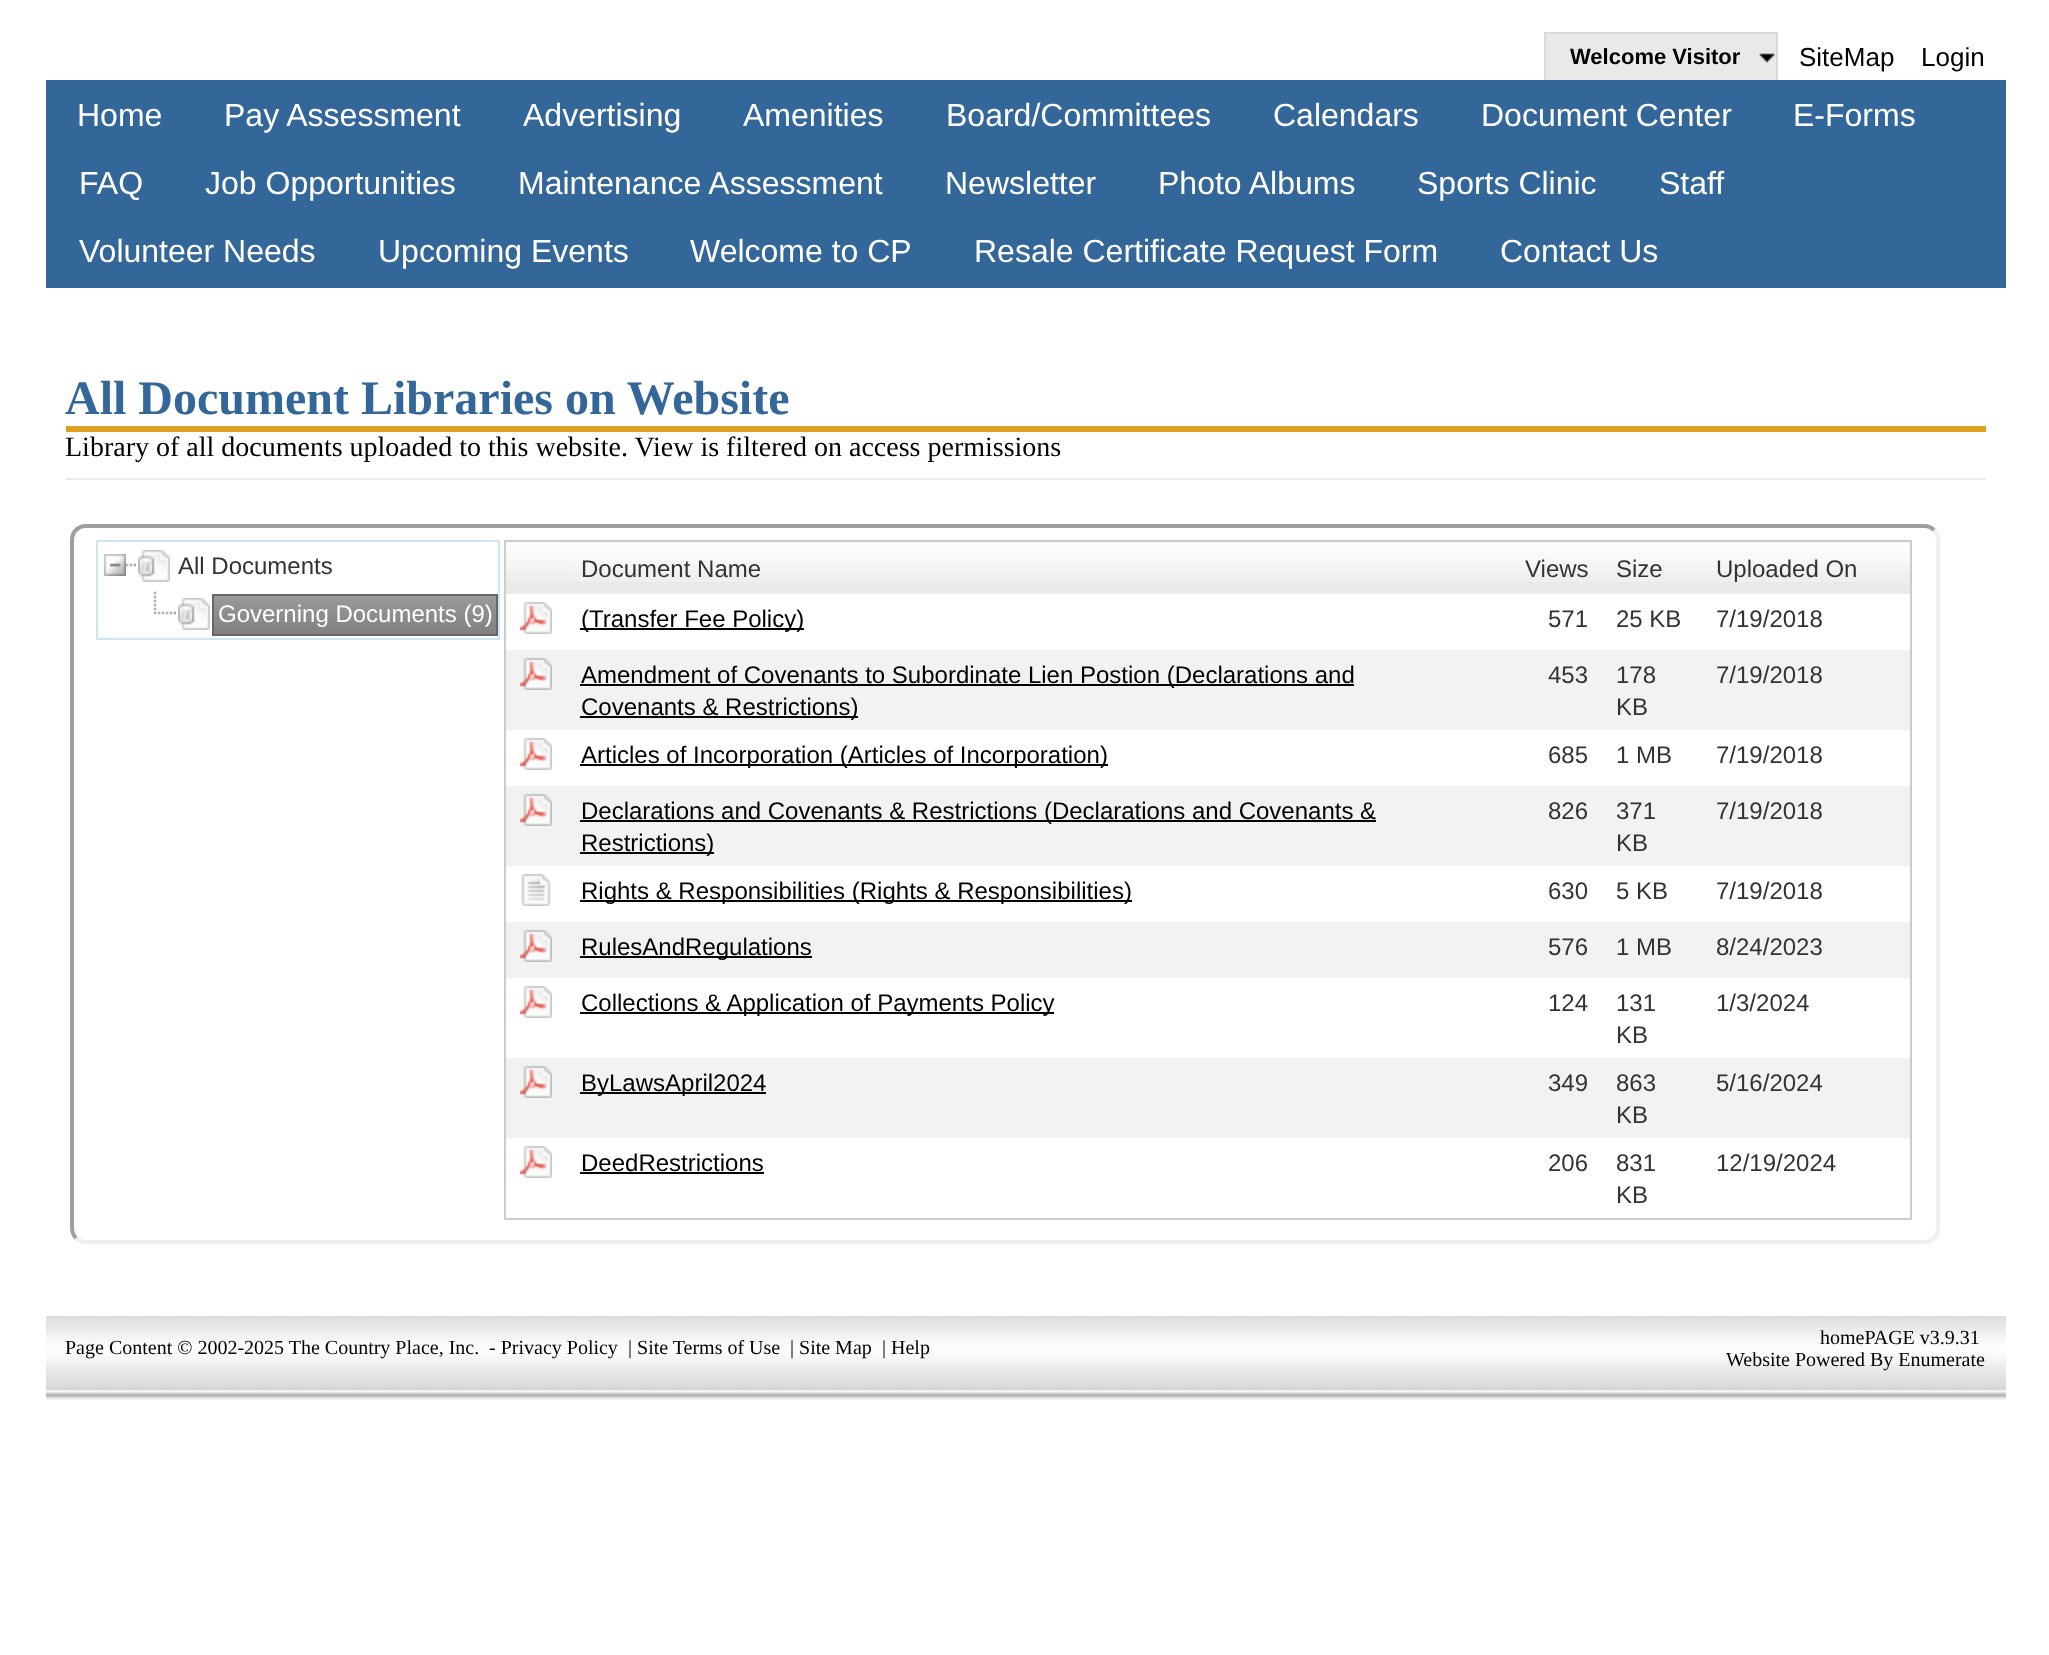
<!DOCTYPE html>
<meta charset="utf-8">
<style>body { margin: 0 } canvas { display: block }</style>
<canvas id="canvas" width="2049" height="1655"></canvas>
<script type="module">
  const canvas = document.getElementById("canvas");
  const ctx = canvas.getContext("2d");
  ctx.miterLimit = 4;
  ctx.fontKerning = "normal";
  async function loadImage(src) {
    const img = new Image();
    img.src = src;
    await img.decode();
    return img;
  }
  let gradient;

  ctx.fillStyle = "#ffffff";
  ctx.fillRect(0, 0, 2049, 1655);
  ctx.fillStyle = "#dadada";
  ctx.fillRect(1544, 32, 234, 2);
  ctx.fillRect(1776, 32, 2, 48);
  ctx.fillRect(1544, 32, 2, 48);
  ctx.fillStyle = "#e9e9e9";
  ctx.fillRect(1546, 34, 230, 46);
  ctx.drawImage(await loadImage("img1.png"), 1759, 53, 16, 10);
  ctx.font = "bold 22px Liberation Sans";
  ctx.fillStyle = "#000000";
  ctx.fillText("Welcome Visitor", 1570, 64);
  ctx.font = "26px Liberation Sans";
  ctx.fillText("SiteMap", 1799, 66);
  ctx.fillText("Login", 1921, 66);
  ctx.fillStyle = "#336699";
  ctx.fillRect(46, 80, 1960, 208);
  ctx.font = "32px Liberation Sans";
  ctx.fillStyle = "#ffffff";
  ctx.fillText("Home", 77, 126);
  ctx.fillText("Pay Assessment", 224, 126);
  ctx.fillText("Advertising", 523, 126);
  ctx.fillText("Amenities", 743, 126);
  ctx.fillText("Board/Committees", 946, 126);
  ctx.fillText("Calendars", 1273, 126);
  ctx.fillText("Document Center", 1481, 126);
  ctx.fillText("E-Forms", 1793, 126);
  ctx.fillText("FAQ", 79, 194);
  ctx.fillText("Job Opportunities", 205, 194);
  ctx.fillText("Maintenance Assessment", 518, 194);
  ctx.fillText("Newsletter", 945, 194);
  ctx.fillText("Photo Albums", 1158, 194);
  ctx.fillText("Sports Clinic", 1417, 194);
  ctx.fillText("Staff", 1659, 194);
  ctx.fillText("Volunteer Needs", 79, 262);
  ctx.fillText("Upcoming Events", 378, 262);
  ctx.fillText("Welcome to CP", 690, 262);
  ctx.fillText("Resale Certificate Request Form", 974, 262);
  ctx.fillText("Contact Us", 1500, 262);
  ctx.fillStyle = "#dea01e";
  ctx.fillRect(66, 426, 1920, 6);
  ctx.font = "bold 48px Liberation Serif";
  ctx.fillStyle = "#336699";
  ctx.fillText("All Document Libraries on Website", 65, 414);
  ctx.font = "28px Liberation Serif";
  ctx.fillStyle = "#000000";
  ctx.fillText("Library of all documents uploaded to this website. View is filtered on access permissions", 65, 456);
  ctx.fillStyle = "#eaeaea";
  ctx.fillRect(66, 478, 1920, 2);
  ctx.beginPath();
  ctx.moveTo(1934, 530);
  ctx.bezierCurveTo(1936.5, 532.5, 1938, 536.5, 1938, 540);
  ctx.lineTo(1938, 1228);
  ctx.bezierCurveTo(1938, 1231.5, 1936.5, 1235.5, 1934, 1238);
  ctx.bezierCurveTo(1931.5, 1240.5, 1927.5, 1242, 1924, 1242);
  ctx.lineTo(86, 1242);
  ctx.bezierCurveTo(82.5, 1242, 78.5, 1240.5, 76, 1238);
  ctx.strokeStyle = "#efefef";
  ctx.lineWidth = 4;
  ctx.stroke();
  ctx.beginPath();
  ctx.moveTo(76, 1238);
  ctx.bezierCurveTo(73.5, 1235.5, 72, 1231.5, 72, 1228);
  ctx.lineTo(72, 540);
  ctx.bezierCurveTo(72, 536.5, 73.5, 532.5, 76, 530);
  ctx.bezierCurveTo(78.5, 527.5, 82.5, 526, 86, 526);
  ctx.lineTo(1924, 526);
  ctx.bezierCurveTo(1927.5, 526, 1931.5, 527.5, 1934, 530);
  ctx.strokeStyle = "#9f9f9f";
  ctx.stroke();
  ctx.strokeStyle = "#cbe7f5";
  ctx.lineWidth = 2;
  ctx.strokeRect(97, 541, 402, 98);
  ctx.drawImage(await loadImage("img2.png"), 126, 563, 10, 4);
  ctx.drawImage(await loadImage("img3.png"), 104, 554, 22, 22);
  ctx.drawImage(await loadImage("img4.png"), 138, 550, 32, 32);
  ctx.font = "24px Liberation Sans";
  ctx.fillStyle = "#333333";
  ctx.fillText("All Documents", 178, 574);
  ctx.drawImage(await loadImage("img5.png"), 153, 591, 23, 24);
  ctx.drawImage(await loadImage("img4.png"), 178, 598, 32, 32);
  gradient = ctx.createLinearGradient(355, 596, 355, 634);
  gradient.addColorStop(0, "#9a9a9a");
  gradient.addColorStop(1, "#808080");
  ctx.fillStyle = gradient;
  ctx.fillRect(214, 596, 282, 38);
  ctx.strokeStyle = "#676767";
  ctx.strokeRect(213, 595, 284, 40);
  ctx.fillStyle = "#ffffff";
  ctx.fillText("Governing Documents (9)", 218, 622);
  ctx.strokeStyle = "#cccccc";
  ctx.strokeRect(505, 541, 1406, 678);
  ctx.fillStyle = "#eaeaea";
  ctx.fillRect(506, 581, 60, 13);
  ctx.drawImage(await loadImage("img6.png"), 506, 542, 60, 39);
  ctx.fillRect(566, 542, 1344, 52);
  ctx.drawImage(await loadImage("img7.png"), 566, 542, 908, 40);
  ctx.fillStyle = "#333333";
  ctx.fillText("Document Name", 581, 577);
  ctx.drawImage(await loadImage("img8.png"), 1474, 542, 128, 40);
  ctx.fillText("Views", 1525, 577);
  ctx.drawImage(await loadImage("img9.png"), 1602, 542, 100, 40);
  ctx.fillText("Size", 1616, 577);
  ctx.drawImage(await loadImage("img10.png"), 1702, 542, 208, 40);
  ctx.fillText("Uploaded On", 1716, 577);
  ctx.drawImage(await loadImage("img11.png"), 520, 602, 32, 32);
  ctx.fillStyle = "#000000";
  ctx.fillRect(580, 628, 224, 2);
  ctx.fillText("(Transfer Fee Policy)", 581, 627);
  ctx.fillStyle = "#333333";
  ctx.fillText("571", 1548, 627);
  ctx.fillText("25 KB", 1616, 627);
  ctx.fillText("7/19/2018", 1716, 627);
  ctx.fillStyle = "#f2f2f2";
  ctx.fillRect(506, 650, 1404, 80);
  ctx.drawImage(await loadImage("img12.png"), 520, 658, 32, 32);
  ctx.fillStyle = "#000000";
  ctx.fillRect(580, 684, 774, 2);
  ctx.fillText("Amendment of Covenants to Subordinate Lien Postion (Declarations and", 581, 683);
  ctx.fillRect(580, 716, 278, 2);
  ctx.fillText("Covenants & Restrictions)", 581, 715);
  ctx.fillStyle = "#333333";
  ctx.fillText("453", 1548, 683);
  ctx.fillText("178", 1616, 683);
  ctx.fillText("KB", 1616, 715);
  ctx.fillText("7/19/2018", 1716, 683);
  ctx.drawImage(await loadImage("img11.png"), 520, 738, 32, 32);
  ctx.fillStyle = "#000000";
  ctx.fillRect(580, 764, 528, 2);
  ctx.fillText("Articles of Incorporation (Articles of Incorporation)", 581, 763);
  ctx.fillStyle = "#333333";
  ctx.fillText("685", 1548, 763);
  ctx.fillText("1 MB", 1616, 763);
  ctx.fillText("7/19/2018", 1716, 763);
  ctx.fillStyle = "#f2f2f2";
  ctx.fillRect(506, 786, 1404, 80);
  ctx.drawImage(await loadImage("img12.png"), 520, 794, 32, 32);
  ctx.fillStyle = "#000000";
  ctx.fillRect(580, 820, 796, 2);
  ctx.fillText("Declarations and Covenants & Restrictions (Declarations and Covenants &", 581, 819);
  ctx.fillRect(580, 852, 134, 2);
  ctx.fillText("Restrictions)", 581, 851);
  ctx.fillStyle = "#333333";
  ctx.fillText("826", 1548, 819);
  ctx.fillText("371", 1616, 819);
  ctx.fillText("KB", 1616, 851);
  ctx.fillText("7/19/2018", 1716, 819);
  ctx.drawImage(await loadImage("img13.png"), 521, 874, 30, 32);
  ctx.fillStyle = "#000000";
  ctx.fillRect(580, 900, 552, 2);
  ctx.fillText("Rights & Responsibilities (Rights & Responsibilities)", 581, 899);
  ctx.fillStyle = "#333333";
  ctx.fillText("630", 1548, 899);
  ctx.fillText("5 KB", 1616, 899);
  ctx.fillText("7/19/2018", 1716, 899);
  ctx.fillStyle = "#f2f2f2";
  ctx.fillRect(506, 922, 1404, 56);
  ctx.drawImage(await loadImage("img12.png"), 520, 930, 32, 32);
  ctx.fillStyle = "#000000";
  ctx.fillRect(580, 956, 232, 2);
  ctx.fillText("RulesAndRegulations", 581, 955);
  ctx.fillStyle = "#333333";
  ctx.fillText("576", 1548, 955);
  ctx.fillText("1 MB", 1616, 955);
  ctx.fillText("8/24/2023", 1716, 955);
  ctx.drawImage(await loadImage("img11.png"), 520, 986, 32, 32);
  ctx.fillStyle = "#000000";
  ctx.fillRect(580, 1012, 474, 2);
  ctx.fillText("Collections & Application of Payments Policy", 581, 1011);
  ctx.fillStyle = "#333333";
  ctx.fillText("124", 1548, 1011);
  ctx.fillText("131", 1616, 1011);
  ctx.fillText("KB", 1616, 1043);
  ctx.fillText("1/3/2024", 1716, 1011);
  ctx.fillStyle = "#f2f2f2";
  ctx.fillRect(506, 1058, 1404, 80);
  ctx.drawImage(await loadImage("img12.png"), 520, 1066, 32, 32);
  ctx.fillStyle = "#000000";
  ctx.fillRect(580, 1092, 186, 2);
  ctx.fillText("ByLawsApril2024", 581, 1091);
  ctx.fillStyle = "#333333";
  ctx.fillText("349", 1548, 1091);
  ctx.fillText("863", 1616, 1091);
  ctx.fillText("KB", 1616, 1123);
  ctx.fillText("5/16/2024", 1716, 1091);
  ctx.drawImage(await loadImage("img11.png"), 520, 1146, 32, 32);
  ctx.fillStyle = "#000000";
  ctx.fillText("DeedRestrictions", 581, 1171);
  ctx.fillRect(580, 1172, 184, 2);
  ctx.fillStyle = "#333333";
  ctx.fillText("206", 1548, 1171);
  ctx.fillText("831", 1616, 1171);
  ctx.fillText("KB", 1616, 1203);
  ctx.fillText("12/19/2024", 1716, 1171);
  ctx.drawImage(await loadImage("img14.png"), 46, 1316, 1960, 84);
  ctx.font = "20px Liberation Serif";
  ctx.fillStyle = "#000000";
  ctx.fillText("Page Content © 2002-2025 The Country Place, Inc.", 65, 1354);
  ctx.fillText("- Privacy Policy", 489, 1354);
  ctx.fillText("| Site Terms of Use", 628, 1354);
  ctx.fillText("| Site Map", 790, 1354);
  ctx.fillText("| Help", 882, 1354);
  ctx.fillText("homePAGE v3.9.31", 1820, 1344);
  ctx.fillText("Website Powered By Enumerate", 1726, 1366);
</script>
